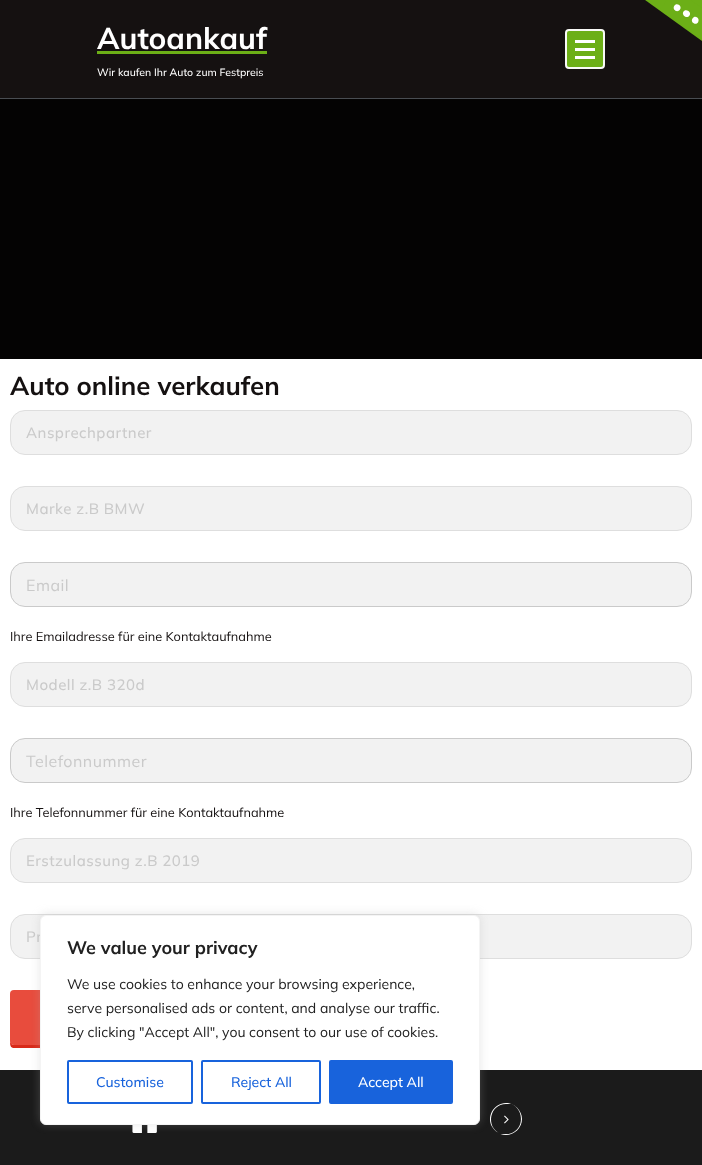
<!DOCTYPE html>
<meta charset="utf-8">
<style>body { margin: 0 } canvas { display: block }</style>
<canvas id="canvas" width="702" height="1165"></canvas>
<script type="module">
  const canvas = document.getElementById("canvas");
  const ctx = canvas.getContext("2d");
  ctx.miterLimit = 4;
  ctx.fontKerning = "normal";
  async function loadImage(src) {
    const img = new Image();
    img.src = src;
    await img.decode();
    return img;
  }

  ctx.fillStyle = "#ffffff";
  ctx.fillRect(0, 0, 702, 1165);
  ctx.fillStyle = "#151111";
  ctx.fillRect(0, 0, 702, 98);
  ctx.fillStyle = "#494d52";
  ctx.fillRect(0, 98, 702, 1);
  ctx.fillStyle = "#6caf17";
  ctx.beginPath();
  ctx.moveTo(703, -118);
  ctx.lineTo(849, -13);
  ctx.lineTo(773, 92);
  ctx.lineTo(627, -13);
  ctx.closePath();
  ctx.fill();
  ctx.beginPath();
  ctx.moveTo(660, 10);
  ctx.lineTo(675, -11);
  ctx.lineTo(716, 18);
  ctx.lineTo(701, 39);
  ctx.closePath();
  ctx.fill();
  ctx.fillStyle = "#ffffff";
  ctx.beginPath();
  ctx.moveTo(683.5, 11.5);
  ctx.bezierCurveTo(686, 8, 692, 12, 689.5, 15.5);
  ctx.bezierCurveTo(687, 19.5, 681, 15, 683.5, 11.5);
  ctx.closePath();
  ctx.moveTo(674.5, 5.5);
  ctx.bezierCurveTo(677, 2, 682.5, 6, 680, 9.5);
  ctx.bezierCurveTo(677.5, 13.5, 671.5, 9.5, 674.5, 5.5);
  ctx.closePath();
  ctx.moveTo(692.5, 18.5);
  ctx.bezierCurveTo(695, 14.5, 700.5, 18.5, 698, 22.5);
  ctx.bezierCurveTo(695.5, 26, 690, 22, 692.5, 18.5);
  ctx.closePath();
  ctx.fill();
  ctx.font = "bold 30px Mulish";
  ctx.fillText("Autoankauf", 97, 49);
  ctx.fillStyle = "#6caf17";
  ctx.fillRect(97, 51, 170, 3);
  ctx.font = "500 10.5px Mulish";
  ctx.fillStyle = "#ffffff";
  ctx.fillText("Wir kaufen Ihr Auto zum Festpreis", 97, 76);
  ctx.fillStyle = "#6caf17";
  ctx.beginPath();
  ctx.roundRect(566, 30, 38, 38, 3);
  ctx.fill();
  ctx.strokeStyle = "#f9faf7";
  ctx.lineWidth = 2;
  ctx.stroke();
  ctx.fillStyle = "#ffffff";
  ctx.fillRect(575, 40, 20, 3);
  ctx.fillRect(575, 48, 20, 3);
  ctx.fillRect(575, 56, 20, 3);
  ctx.fillStyle = "#040303";
  ctx.fillRect(0, 99, 702, 260);
  ctx.font = "bold 25.75px Mulish";
  ctx.fillStyle = "#151111";
  ctx.fillText("Auto online verkaufen", 10, 395);
  ctx.fillStyle = "#f2f2f2";
  ctx.beginPath();
  ctx.roundRect(10.5, 410.5, 681, 44, 14.5);
  ctx.fill();
  ctx.strokeStyle = "#dedede";
  ctx.lineWidth = 1;
  ctx.stroke();
  ctx.letterSpacing = "0.5px";
  ctx.font = "500 15px Mulish";
  ctx.fillStyle = "#cacaca";
  ctx.fillText("Ansprechpartner", 26, 438);
  ctx.fillStyle = "#f2f2f2";
  ctx.beginPath();
  ctx.roundRect(10.5, 486.5, 681, 44, 14.5);
  ctx.fill();
  ctx.stroke();
  ctx.fillStyle = "#cacaca";
  ctx.fillText("Marke z.B BMW", 26, 514);
  ctx.fillStyle = "#f2f2f2";
  ctx.beginPath();
  ctx.roundRect(10.5, 562.5, 681, 44, 14.5);
  ctx.fill();
  ctx.strokeStyle = "#cacaca";
  ctx.stroke();
  ctx.font = "16px Mulish";
  ctx.fillStyle = "#cacaca";
  ctx.fillText("Email", 26, 591);
  ctx.letterSpacing = "0px";
  ctx.font = "12.8px Mulish";
  ctx.fillStyle = "#151111";
  ctx.fillText("Ihre Emailadresse für eine Kontaktaufnahme", 10, 641);
  ctx.fillStyle = "#f2f2f2";
  ctx.beginPath();
  ctx.roundRect(10.5, 662.5, 681, 44, 14.5);
  ctx.fill();
  ctx.strokeStyle = "#dedede";
  ctx.stroke();
  ctx.letterSpacing = "0.5px";
  ctx.font = "500 15px Mulish";
  ctx.fillStyle = "#cacaca";
  ctx.fillText("Modell z.B 320d", 26, 690);
  ctx.fillStyle = "#f2f2f2";
  ctx.beginPath();
  ctx.roundRect(10.5, 738.5, 681, 44, 14.5);
  ctx.fill();
  ctx.strokeStyle = "#cacaca";
  ctx.stroke();
  ctx.font = "16px Mulish";
  ctx.fillStyle = "#cacaca";
  ctx.fillText("Telefonnummer", 26, 767);
  ctx.letterSpacing = "0px";
  ctx.font = "12.8px Mulish";
  ctx.fillStyle = "#151111";
  ctx.fillText("Ihre Telefonnummer für eine Kontaktaufnahme", 10, 817);
  ctx.fillStyle = "#f2f2f2";
  ctx.beginPath();
  ctx.roundRect(10.5, 838.5, 681, 44, 14.5);
  ctx.fill();
  ctx.strokeStyle = "#dedede";
  ctx.stroke();
  ctx.letterSpacing = "0.5px";
  ctx.font = "500 15px Mulish";
  ctx.fillStyle = "#cacaca";
  ctx.fillText("Erstzulassung z.B 2019", 26, 866);
  ctx.fillStyle = "#f2f2f2";
  ctx.beginPath();
  ctx.roundRect(10.5, 914.5, 681, 44, 14.5);
  ctx.fill();
  ctx.stroke();
  ctx.fillStyle = "#cacaca";
  ctx.fillText("Pr", 26, 942);
  ctx.fillStyle = "#d82a1a";
  ctx.beginPath();
  ctx.moveTo(10, 1041);
  ctx.bezierCurveTo(10, 1044, 10, 1047, 13, 1048);
  ctx.lineTo(306, 1048);
  ctx.bezierCurveTo(310, 1048, 310, 1044, 310, 1041);
  ctx.bezierCurveTo(310, 1043, 308, 1045, 306, 1045);
  ctx.lineTo(14, 1045);
  ctx.bezierCurveTo(12, 1045, 10, 1043, 10, 1041);
  ctx.closePath();
  ctx.fill();
  ctx.fillStyle = "#e84c3d";
  ctx.beginPath();
  ctx.roundRect(10, 990, 300, 55, 4);
  ctx.fill();
  ctx.fillStyle = "#1b1b1b";
  ctx.fillRect(0, 1070, 702, 95);
  ctx.drawImage(await loadImage("img1.png"), 132, 1125, 25, 8);
  ctx.fillStyle = "#ffffff";
  ctx.beginPath();
  ctx.moveTo(506, 1103);
  ctx.bezierCurveTo(493.5, 1103, 485.5, 1117.5, 493, 1128);
  ctx.bezierCurveTo(495, 1131, 496.5, 1131.5, 500, 1133.5);
  ctx.bezierCurveTo(502, 1134.5, 504, 1135, 506, 1135);
  ctx.bezierCurveTo(504, 1135, 502, 1134.5, 500, 1133.5);
  ctx.bezierCurveTo(485.5, 1127, 489.5, 1104, 506, 1104);
  ctx.lineTo(511.5, 1104);
  ctx.bezierCurveTo(510, 1103.5, 508, 1103, 506, 1103);
  ctx.closePath();
  ctx.fill();
  ctx.beginPath();
  ctx.moveTo(522, 1119);
  ctx.bezierCurveTo(522, 1130, 510.5, 1138, 500.5, 1134);
  ctx.bezierCurveTo(504.5, 1134, 508.5, 1134.5, 512, 1133);
  ctx.bezierCurveTo(527, 1126.5, 522, 1103, 506, 1103);
  ctx.bezierCurveTo(514.5, 1103, 522, 1110.5, 522, 1119);
  ctx.closePath();
  ctx.fill();
  ctx.drawImage(await loadImage("img2.png"), 504, 1115, 5, 9);
  ctx.fillStyle = "rgba(172, 171, 171, 0.3)";
  ctx.filter = "blur(5px)";
  ctx.beginPath();
  ctx.roundRect(40, 914, 440, 210, 6);
  ctx.fill();
  ctx.filter = "none";
  ctx.fillStyle = "#ffffff";
  ctx.beginPath();
  ctx.roundRect(40.5, 915.5, 439, 209, 5.5);
  ctx.fill();
  ctx.strokeStyle = "#f4f4f4";
  ctx.stroke();
  ctx.letterSpacing = "0px";
  ctx.font = "bold 18px Mulish";
  ctx.fillStyle = "#212121";
  ctx.fillText("We value your privacy", 67, 954);
  ctx.font = "14px Mulish";
  ctx.fillText("We use cookies to enhance your browsing experience,", 67, 989);
  ctx.fillText("serve personalised ads or content, and analyse our traffic.", 67, 1013);
  ctx.fillText("By clicking \"Accept All\", you consent to our use of cookies.", 67, 1037);
  ctx.beginPath();
  ctx.roundRect(68, 1061, 124, 42, 1);
  ctx.strokeStyle = "#1863dc";
  ctx.lineWidth = 2;
  ctx.stroke();
  ctx.font = "500 14px Mulish";
  ctx.fillStyle = "#1863dc";
  ctx.fillText("Customise", 96, 1087);
  ctx.beginPath();
  ctx.roundRect(202, 1061, 118, 42, 1);
  ctx.stroke();
  ctx.fillText("Reject All", 231, 1087);
  ctx.beginPath();
  ctx.roundRect(330, 1061, 122, 42, 1);
  ctx.fill();
  ctx.stroke();
  ctx.fillStyle = "#ffffff";
  ctx.fillText("Accept All", 358, 1087);
</script>
